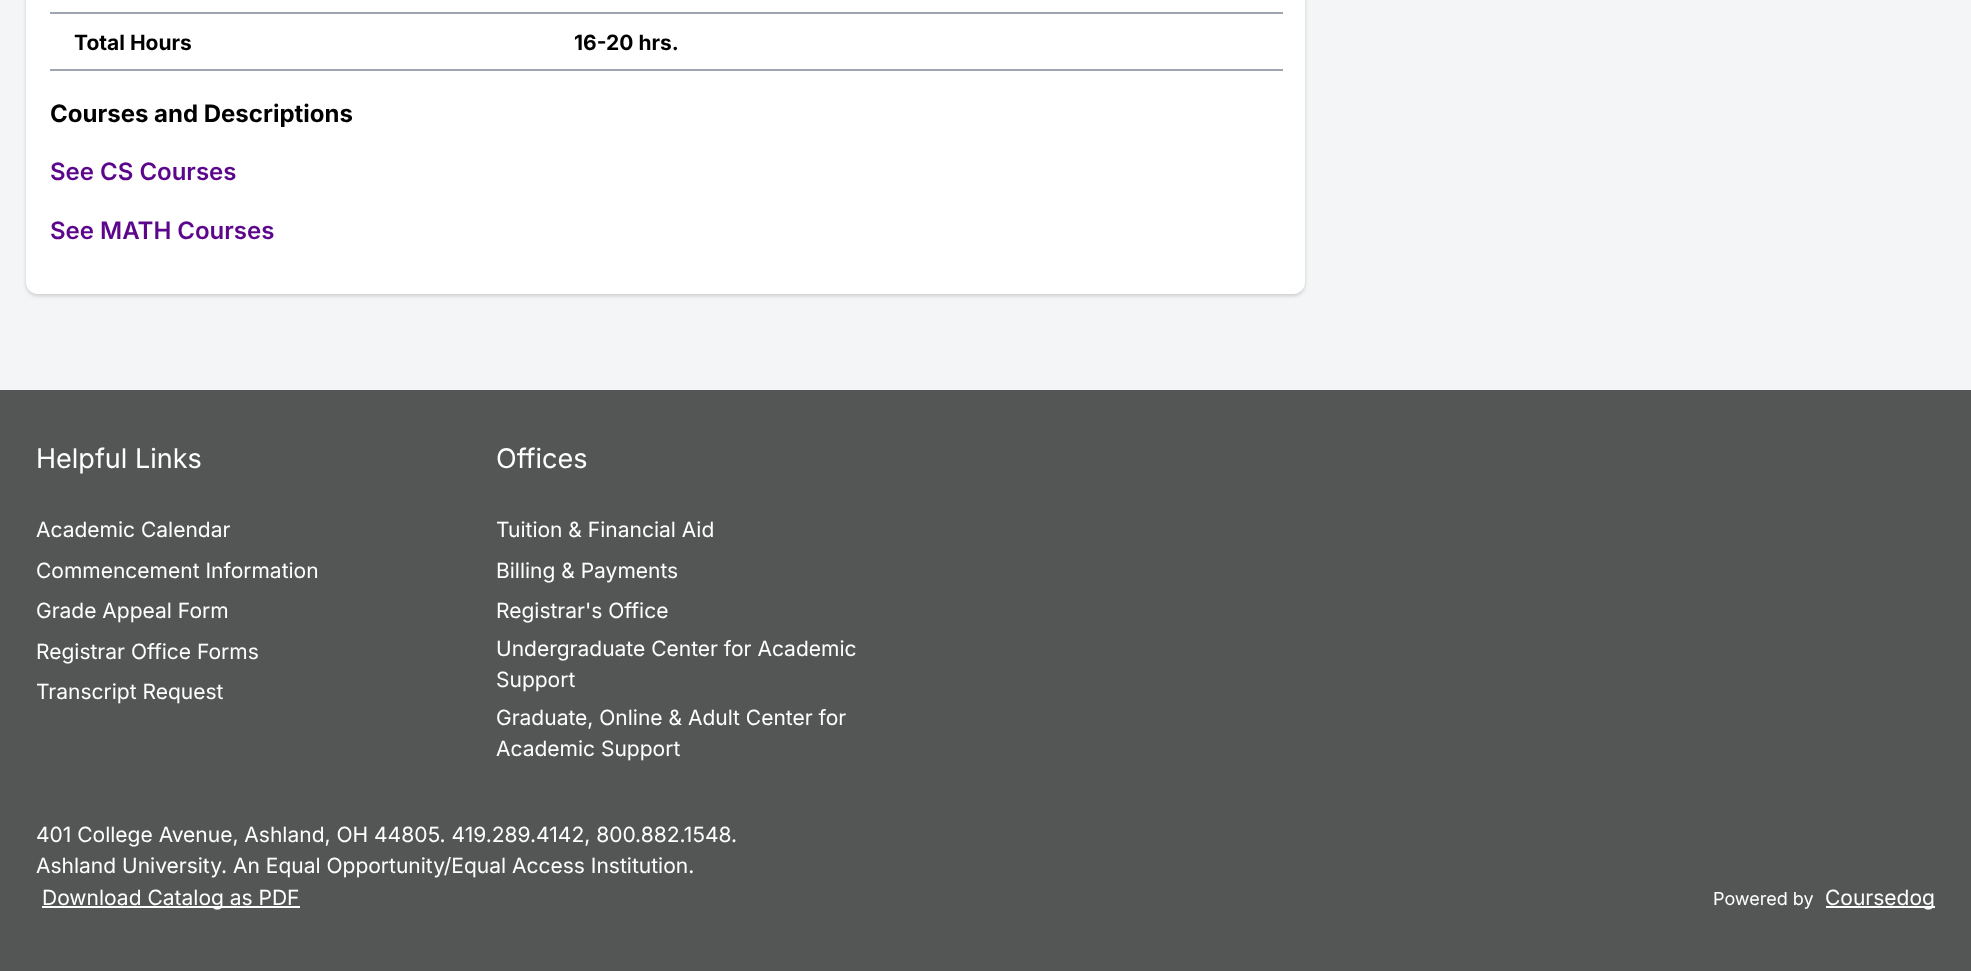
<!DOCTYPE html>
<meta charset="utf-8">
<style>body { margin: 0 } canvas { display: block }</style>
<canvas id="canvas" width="1971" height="971"></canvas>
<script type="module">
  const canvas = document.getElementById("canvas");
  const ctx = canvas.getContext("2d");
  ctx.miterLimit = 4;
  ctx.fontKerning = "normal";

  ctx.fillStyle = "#f4f5f7";
  ctx.fillRect(0, 0, 1971, 971);
  ctx.fillStyle = "rgba(0, 0, 0, 0.06)";
  ctx.filter = "blur(1.5px)";
  ctx.beginPath();
  ctx.roundRect(26, -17, 1279, 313, 12);
  ctx.fill();
  ctx.filter = "none";
  ctx.fillStyle = "rgba(0, 0, 0, 0.1)";
  ctx.filter = "blur(2px)";
  ctx.beginPath();
  ctx.roundRect(26, -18, 1279, 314, 12);
  ctx.fill();
  ctx.filter = "none";
  ctx.fillStyle = "#ffffff";
  ctx.beginPath();
  ctx.roundRect(26, -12, 1279, 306, 12);
  ctx.fill();
  ctx.fillStyle = "#9fa6b2";
  ctx.fillRect(50, 12, 1233, 2);
  ctx.fillRect(50, 69, 1233, 2);
  ctx.font = "bold 21px Inter";
  ctx.fillStyle = "#000000";
  ctx.fillText("Total Hours", 74, 50);
  ctx.fillText("16-20 hrs.", 574, 50);
  ctx.font = "bold 24px Inter";
  ctx.fillText("Courses and Descriptions", 50, 122);
  ctx.font = "600 24px Inter";
  ctx.fillStyle = "#5c068c";
  ctx.fillText("See CS Courses", 50, 180);
  ctx.fillText("See MATH Courses", 50, 239);
  ctx.fillStyle = "#545555";
  ctx.fillRect(0, 390, 1971, 581);
  ctx.font = "27px Inter";
  ctx.fillStyle = "#ffffff";
  ctx.fillText("Helpful Links", 36, 468);
  ctx.font = "21px Inter";
  ctx.fillText("Academic Calendar", 36, 537);
  ctx.fillText("Commencement Information", 36, 578);
  ctx.fillText("Grade Appeal Form", 36, 618);
  ctx.fillText("Registrar Office Forms", 36, 659);
  ctx.fillText("Transcript Request", 36, 699);
  ctx.font = "27px Inter";
  ctx.fillText("Offices", 496, 468);
  ctx.font = "21px Inter";
  ctx.fillText("Tuition & Financial Aid", 496, 537);
  ctx.fillText("Billing & Payments", 496, 578);
  ctx.fillText("Registrar's Office", 496, 618);
  ctx.fillText("Undergraduate Center for Academic", 496, 656);
  ctx.fillText("Support", 496, 687);
  ctx.fillText("Graduate, Online & Adult Center for", 496, 725);
  ctx.fillText("Academic Support", 496, 756);
  ctx.fillText("401 College Avenue, Ashland, OH 44805. 419.289.4142, 800.882.1548.", 36, 842);
  ctx.fillText("Ashland University. An Equal Opportunity/Equal Access Institution.", 36, 873);
  ctx.fillRect(42, 906, 258, 2);
  ctx.fillText("Download Catalog as PDF", 42, 905);
  ctx.font = "18px Inter";
  ctx.fillText("Powered by", 1713, 905);
  ctx.fillRect(1826, 906, 109, 2);
  ctx.font = "21px Inter";
  ctx.fillText("Coursedog", 1825, 905);
</script>
